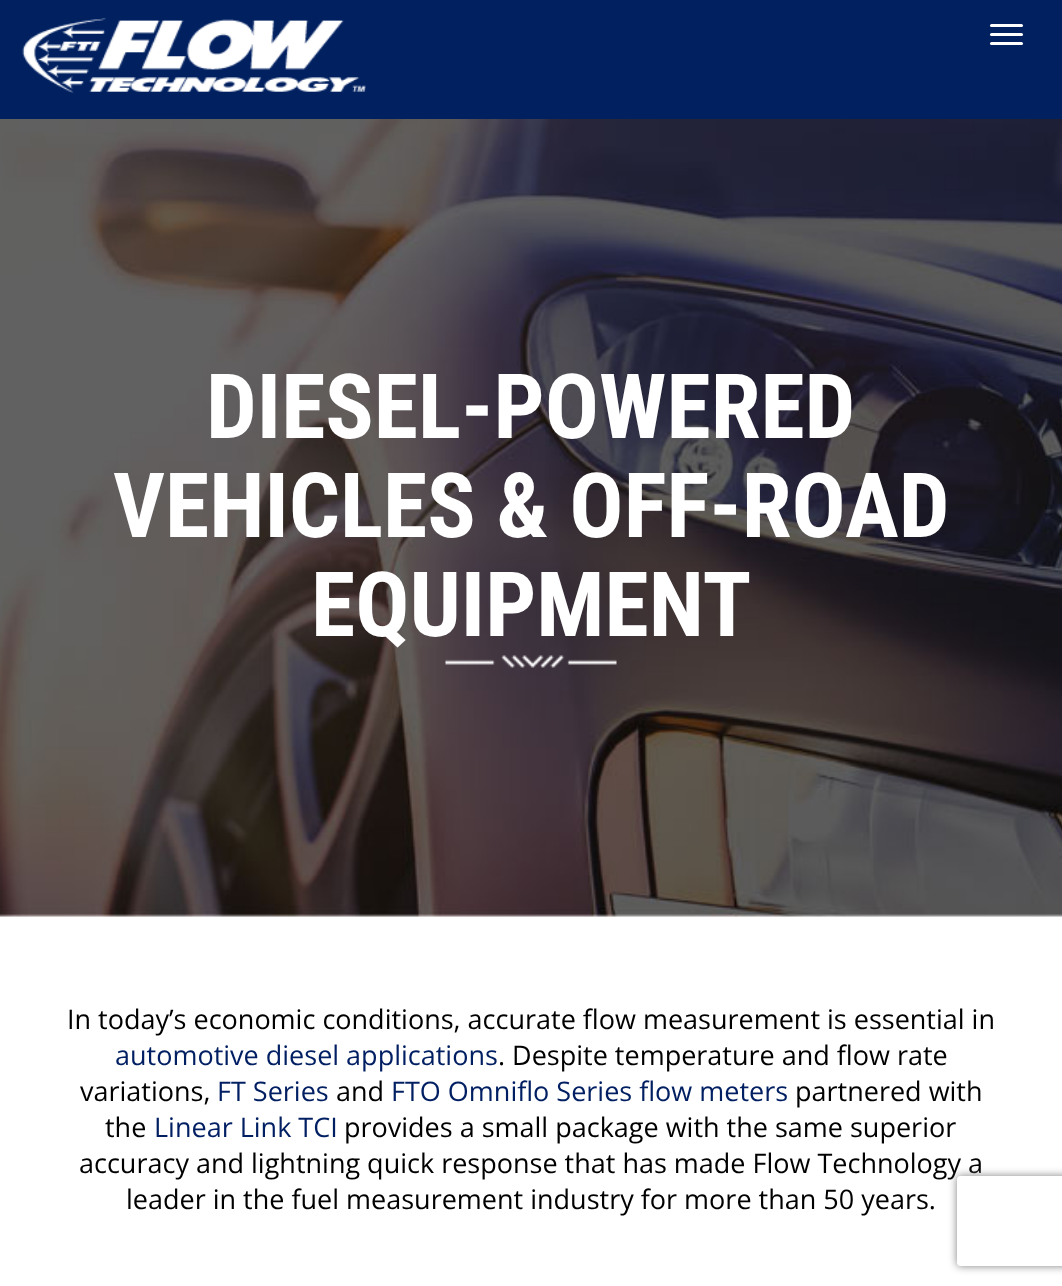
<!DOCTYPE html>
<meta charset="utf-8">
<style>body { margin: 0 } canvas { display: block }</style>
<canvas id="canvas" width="1062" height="1286"></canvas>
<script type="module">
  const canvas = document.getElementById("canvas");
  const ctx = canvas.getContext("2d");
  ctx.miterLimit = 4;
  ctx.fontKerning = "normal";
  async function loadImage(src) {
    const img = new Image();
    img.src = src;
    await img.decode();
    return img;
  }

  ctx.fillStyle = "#ffffff";
  ctx.fillRect(0, 0, 1062, 1286);
  ctx.fillStyle = "#002060";
  ctx.fillRect(0, 0, 1062, 119);
  ctx.drawImage(await loadImage("img1.png"), 22, 18, 344, 75);
  ctx.fillStyle = "#ffffff";
  ctx.beginPath();
  ctx.roundRect(990, 24, 33, 3, 1.5);
  ctx.fill();
  ctx.beginPath();
  ctx.roundRect(990, 33, 33, 3, 1.5);
  ctx.fill();
  ctx.beginPath();
  ctx.roundRect(990, 42, 33, 3, 1.5);
  ctx.fill();
  ctx.drawImage(await loadImage("img2.png"), 0, 119, 1062, 798);
  ctx.font = "bold 90px Roboto Condensed";
  ctx.fillText("DIESEL-POWERED", 206, 438);
  ctx.fillText("VEHICLES & OFF-ROAD", 113, 537);
  ctx.fillText("EQUIPMENT", 311, 636);
  ctx.drawImage(await loadImage("img3.png"), 445, 655, 172, 13);
  ctx.font = "27px Open Sans";
  ctx.fillStyle = "#000000";
  ctx.fillText("In today’s economic conditions, accurate flow measurement is essential in", 67, 1029);
  ctx.fillStyle = "#001e62";
  ctx.fillText("automotive diesel applications", 115, 1065);
  ctx.fillStyle = "#000000";
  ctx.fillText(". Despite temperature and flow rate", 498, 1065);
  ctx.fillText("variations,", 80, 1101);
  ctx.fillStyle = "#001e62";
  ctx.fillText("FT Series", 217, 1101);
  ctx.fillStyle = "#000000";
  ctx.fillText("and", 336, 1101);
  ctx.fillStyle = "#001e62";
  ctx.fillText("FTO Omniflo Series flow meters", 391, 1101);
  ctx.fillStyle = "#000000";
  ctx.fillText("partnered with", 795, 1101);
  ctx.fillText("the", 105, 1137);
  ctx.fillStyle = "#001e62";
  ctx.fillText("Linear Link TCI", 154, 1137);
  ctx.fillStyle = "#000000";
  ctx.fillText("provides a small package with the same superior", 344, 1137);
  ctx.fillText("accuracy and lightning quick response that has made Flow Technology a", 79, 1173);
  ctx.fillText("leader in the fuel measurement industry for more than 50 years.", 126, 1209);
  ctx.save();
  ctx.beginPath();
  ctx.moveTo(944, 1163);
  ctx.lineTo(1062, 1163);
  ctx.lineTo(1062, 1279);
  ctx.lineTo(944, 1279);
  ctx.closePath();
  ctx.moveTo(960, 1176);
  ctx.lineTo(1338, 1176);
  ctx.bezierCurveTo(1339.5, 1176, 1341, 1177.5, 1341, 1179);
  ctx.lineTo(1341, 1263);
  ctx.bezierCurveTo(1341, 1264.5, 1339.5, 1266, 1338, 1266);
  ctx.lineTo(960, 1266);
  ctx.bezierCurveTo(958.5, 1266, 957, 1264.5, 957, 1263);
  ctx.lineTo(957, 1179);
  ctx.bezierCurveTo(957, 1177.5, 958.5, 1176, 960, 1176);
  ctx.closePath();
  ctx.clip("evenodd");
  ctx.fillStyle = "#808080";
  ctx.filter = "blur(4px)";
  ctx.beginPath();
  ctx.roundRect(957, 1176, 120, 90, 3);
  ctx.fill();
  ctx.filter = "none";
  ctx.restore();
</script>
